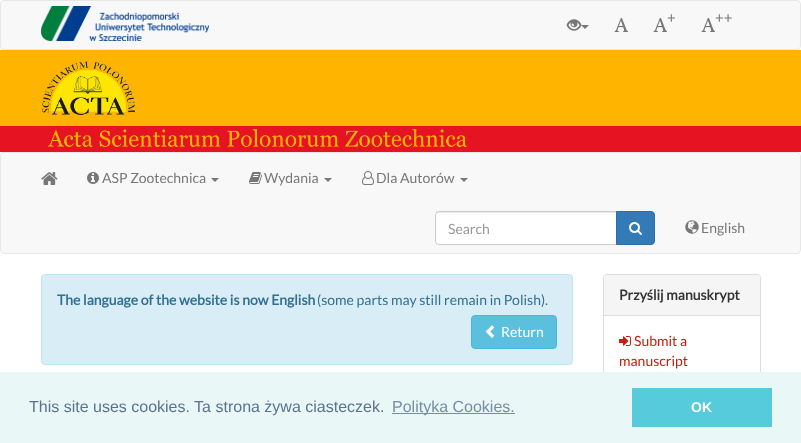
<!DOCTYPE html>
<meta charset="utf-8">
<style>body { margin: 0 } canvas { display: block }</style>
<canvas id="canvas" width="801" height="443"></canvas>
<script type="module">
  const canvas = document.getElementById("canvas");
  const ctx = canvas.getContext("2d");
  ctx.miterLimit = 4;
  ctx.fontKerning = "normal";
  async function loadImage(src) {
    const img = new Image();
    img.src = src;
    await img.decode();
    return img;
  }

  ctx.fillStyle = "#ffffff";
  ctx.fillRect(0, 0, 801, 443);
  ctx.fillStyle = "#f8f8f8";
  ctx.beginPath();
  ctx.roundRect(0.5, 0.5, 800, 49, 3.5);
  ctx.fill();
  ctx.strokeStyle = "#e7e7e7";
  ctx.stroke();
  ctx.drawImage(await loadImage("img1.png"), 41, 6, 168, 35);
  ctx.fillStyle = "#777777";
  ctx.beginPath();
  ctx.moveTo(581, 25);
  ctx.lineTo(589, 25);
  ctx.lineTo(585, 29);
  ctx.closePath();
  ctx.fill();
  ctx.drawImage(await loadImage("img2.png"), 566, 19, 16, 12);
  ctx.drawImage(await loadImage("img3.png"), 614, 18, 14, 14);
  ctx.drawImage(await loadImage("img3.png"), 653, 18, 14, 14);
  ctx.font = "15px Lato";
  ctx.fillText("+", 667, 23);
  ctx.drawImage(await loadImage("img3.png"), 701, 18, 14, 14);
  ctx.fillText("++", 715, 23);
  ctx.fillStyle = "#ffb400";
  ctx.fillRect(0, 50, 801, 76);
  ctx.drawImage(await loadImage("img4.png"), 41, 61, 95, 55);
  ctx.fillStyle = "#e61322";
  ctx.fillRect(0, 126, 801, 26);
  ctx.drawImage(await loadImage("img5.png"), 47, 129, 420, 18);
  ctx.fillStyle = "#f8f8f8";
  ctx.beginPath();
  ctx.roundRect(0.5, 152.5, 800, 101, 3.5);
  ctx.fill();
  ctx.stroke();
  ctx.drawImage(await loadImage("img6.png"), 41, 172, 17, 13);
  ctx.drawImage(await loadImage("img7.png"), 87, 172, 12, 12);
  ctx.font = "14px Lato";
  ctx.fillStyle = "#777777";
  ctx.fillText("ASP Zootechnica", 102, 183);
  ctx.beginPath();
  ctx.moveTo(211, 178);
  ctx.lineTo(219, 178);
  ctx.lineTo(215, 182);
  ctx.closePath();
  ctx.fill();
  ctx.drawImage(await loadImage("img8.png"), 249, 172, 13, 12);
  ctx.fillText("Wydania", 264, 183);
  ctx.beginPath();
  ctx.moveTo(324, 178);
  ctx.lineTo(332, 178);
  ctx.lineTo(328, 182);
  ctx.closePath();
  ctx.fill();
  ctx.drawImage(await loadImage("img9.png"), 362, 171, 12, 14);
  ctx.fillText("Dla Autorów", 376, 183);
  ctx.beginPath();
  ctx.moveTo(460, 178);
  ctx.lineTo(468, 178);
  ctx.lineTo(464, 182);
  ctx.closePath();
  ctx.fill();
  ctx.fillStyle = "#ffffff";
  ctx.beginPath();
  ctx.roundRect(435, 211, 182, 34, [4, 0, 0, 4]);
  ctx.fill();
  ctx.fillStyle = "#ececec";
  ctx.beginPath();
  ctx.moveTo(439, 213);
  ctx.lineTo(616, 213);
  ctx.lineTo(616, 212);
  ctx.lineTo(438, 212);
  ctx.bezierCurveTo(436, 213, 436, 214, 436, 216);
  ctx.bezierCurveTo(436, 214, 437, 213, 439, 213);
  ctx.closePath();
  ctx.fill();
  ctx.beginPath();
  ctx.roundRect(435.5, 211.5, 181, 33, [3.5, 0, 0, 3.5]);
  ctx.strokeStyle = "#cccccc";
  ctx.stroke();
  ctx.fillStyle = "#999999";
  ctx.fillText("Search", 448, 234);
  ctx.fillStyle = "#337ab7";
  ctx.beginPath();
  ctx.roundRect(616.5, 211.5, 38, 33, [0, 3.5, 3.5, 0]);
  ctx.fill();
  ctx.strokeStyle = "#2e6da4";
  ctx.stroke();
  ctx.drawImage(await loadImage("img10.png"), 629, 222, 13, 13);
  ctx.drawImage(await loadImage("img11.png"), 685, 220, 14, 14);
  ctx.fillStyle = "#777777";
  ctx.fillText("English", 701, 233);
  ctx.fillStyle = "#d9edf7";
  ctx.beginPath();
  ctx.roundRect(41.5, 274.5, 531, 90, 3.5);
  ctx.fill();
  ctx.strokeStyle = "#bce8f1";
  ctx.stroke();
  ctx.font = "bold 14px Lato";
  ctx.fillStyle = "#31708f";
  ctx.fillText("The language of the website is now English", 57, 305);
  ctx.font = "14px Lato";
  ctx.fillText("(some parts may still remain in Polish).", 317, 305);
  ctx.fillStyle = "#5bc0de";
  ctx.beginPath();
  ctx.roundRect(471.5, 315.5, 85, 33, 3.5);
  ctx.fill();
  ctx.strokeStyle = "#46b8da";
  ctx.stroke();
  ctx.drawImage(await loadImage("img12.png"), 485, 325, 10, 13);
  ctx.fillStyle = "#ffffff";
  ctx.fillText("Return", 501, 337);
  ctx.beginPath();
  ctx.roundRect(603.5, 274.5, 157, 122, 3.5);
  ctx.strokeStyle = "#dddddd";
  ctx.stroke();
  ctx.fillStyle = "#f5f5f5";
  ctx.beginPath();
  ctx.roundRect(604, 275, 156, 41, [3, 3, 0, 0]);
  ctx.fill();
  ctx.fillStyle = "#dddddd";
  ctx.fillRect(604, 315, 156, 1);
  ctx.font = "bold 14px Lato";
  ctx.fillStyle = "#333333";
  ctx.fillText("Przyślij manuskrypt", 619, 300);
  ctx.drawImage(await loadImage("img13.png"), 619, 336, 12, 10);
  ctx.font = "14px Lato";
  ctx.fillStyle = "#c91b0e";
  ctx.fillText("Submit a", 634, 346);
  ctx.fillText("manuscript", 619, 366);
  ctx.fillStyle = "#eaf7f7";
  ctx.fillRect(0, 372, 801, 71);
  ctx.font = "16px Liberation Sans";
  ctx.fillStyle = "#5c7291";
  ctx.fillText("This site uses cookies. Ta strona żywa ciasteczek.", 29, 412);
  ctx.fillStyle = "#788da5";
  ctx.fillRect(392, 413, 123, 1);
  ctx.fillText("Polityka Cookies.", 392, 412);
  ctx.fillStyle = "#56cbdb";
  ctx.fillRect(632, 388, 140, 39);
  ctx.font = "bold 14px Liberation Sans";
  ctx.fillStyle = "#ffffff";
  ctx.fillText("OK", 691, 412);
</script>
